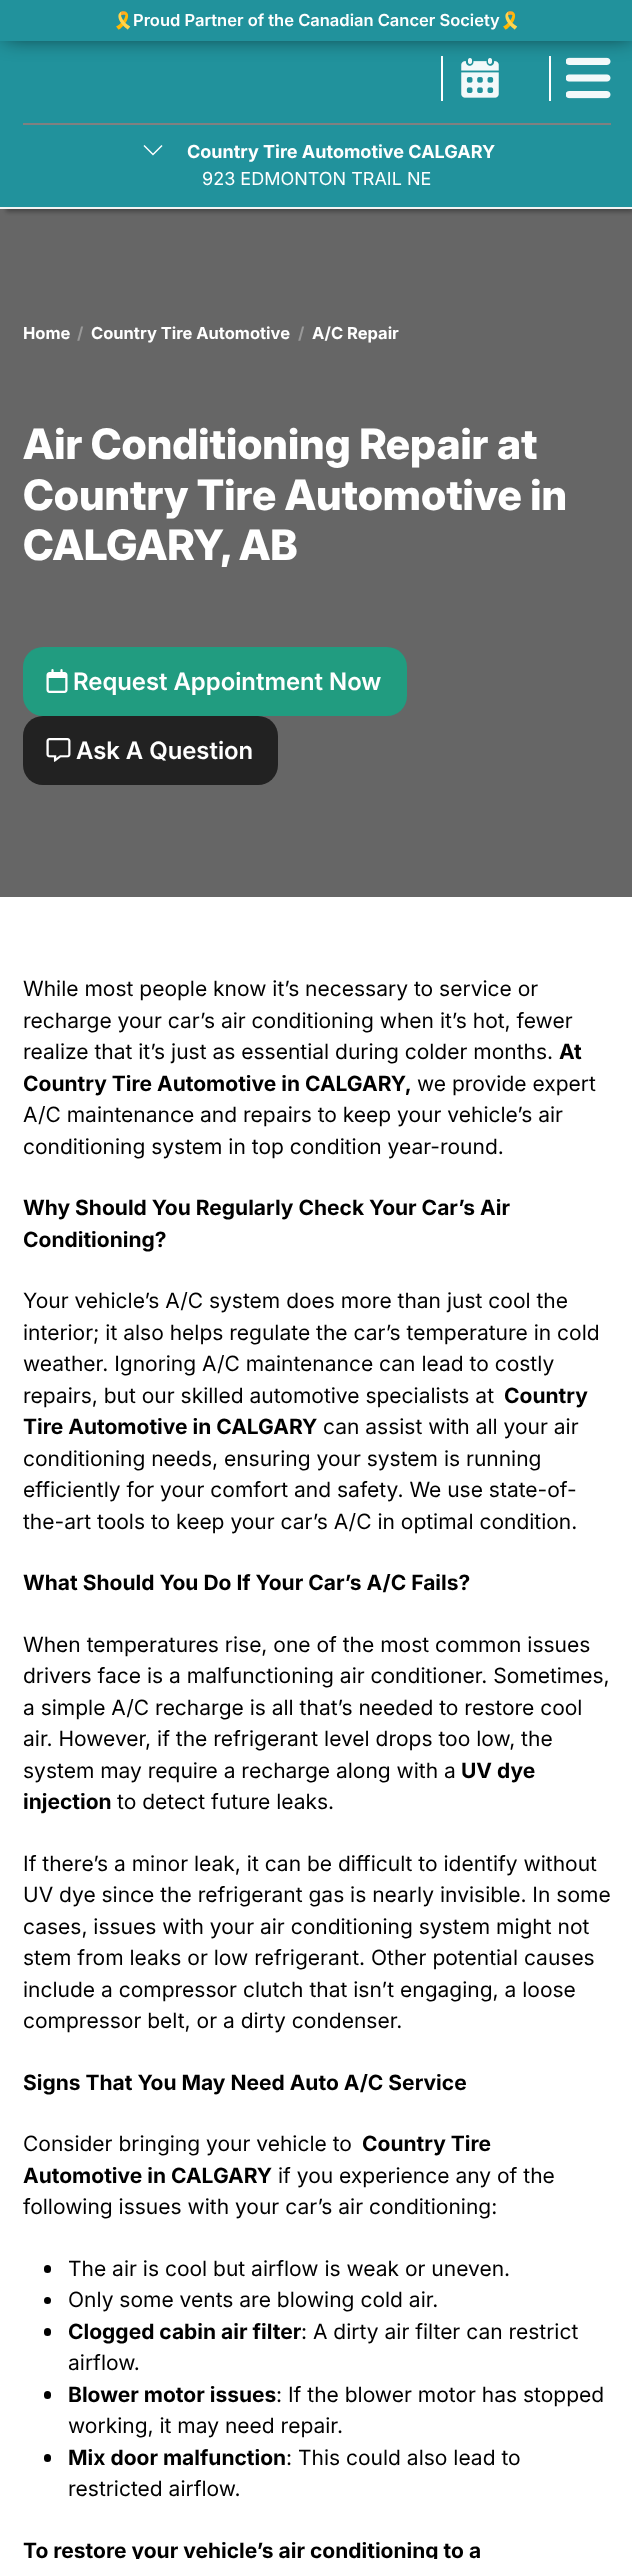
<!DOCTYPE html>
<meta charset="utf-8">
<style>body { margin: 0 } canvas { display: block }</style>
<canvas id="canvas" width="632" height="2559"></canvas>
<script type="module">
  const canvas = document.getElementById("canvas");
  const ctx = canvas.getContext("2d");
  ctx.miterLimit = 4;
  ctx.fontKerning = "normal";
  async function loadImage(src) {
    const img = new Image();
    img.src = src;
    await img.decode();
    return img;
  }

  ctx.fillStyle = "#ffffff";
  ctx.fillRect(0, 0, 632, 2559);
  ctx.fillStyle = "rgba(0, 0, 0, 0.31)";
  ctx.filter = "blur(2px)";
  ctx.beginPath();
  ctx.rect(6, 9, 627, 203);
  ctx.fill();
  ctx.filter = "none";
  ctx.fillStyle = "#21929c";
  ctx.fillRect(0, 41, 632, 166);
  ctx.fillStyle = "#ffffff";
  ctx.fillRect(441, 56, 2, 45);
  ctx.drawImage(await loadImage("img1.png"), 461, 58, 38, 40);
  ctx.fillRect(549, 56, 2, 45);
  ctx.drawImage(await loadImage("img2.png"), 566, 57, 45, 42);
  ctx.fillStyle = "rgba(0, 0, 0, 0.74)";
  ctx.filter = "blur(11px)";
  ctx.beginPath();
  ctx.rect(5, 2, 627, 34);
  ctx.fill();
  ctx.filter = "none";
  ctx.fillStyle = "#21929c";
  ctx.fillRect(0, 0, 632, 41);
  ctx.font = "bold 16.5px Noto Color Emoji";
  ctx.fillStyle = "#ffffff";
  ctx.fillText("🎗️", 113, 26);
  ctx.font = "600 16.5px 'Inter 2'";
  ctx.fillText("Proud Partner of the Canadian Cancer Society", 133, 26);
  ctx.font = "bold 16.5px Noto Color Emoji";
  ctx.fillText("🎗️", 500, 26);
  ctx.fillStyle = "#808080";
  ctx.fillRect(23, 123, 588, 2);
  ctx.beginPath();
  ctx.moveTo(162, 145.5);
  ctx.lineTo(153, 154.5);
  ctx.lineTo(144, 145.5);
  ctx.strokeStyle = "#ffffff";
  ctx.lineWidth = 1.5;
  ctx.stroke();
  ctx.font = "bold 18px Inter";
  ctx.fillStyle = "#ffffff";
  ctx.fillText("Country Tire Automotive CALGARY", 187, 158);
  ctx.font = "18px Inter";
  ctx.fillText("923 EDMONTON TRAIL NE", 202, 185);
  ctx.fillStyle = "#f3f3f3";
  ctx.fillRect(0, 207, 632, 2);
  ctx.fillStyle = "rgba(0, 0, 0, 0.6)";
  ctx.fillRect(0, 209, 632, 688);
  ctx.font = "bold 16.5px Inter";
  ctx.fillStyle = "#ffffff";
  ctx.fillText("Home", 23, 339);
  ctx.fillStyle = "#999999";
  ctx.fillText("/", 77, 339);
  ctx.fillStyle = "#ffffff";
  ctx.fillText("Country Tire Automotive", 91, 339);
  ctx.fillStyle = "#999999";
  ctx.fillText("/", 298, 339);
  ctx.fillStyle = "#ffffff";
  ctx.fillText("A/C Repair", 312, 339);
  ctx.font = "800 42px Inter";
  ctx.fillText("Air Conditioning Repair at", 23, 459);
  ctx.fillText("Country Tire Automotive in", 23, 510);
  ctx.fillText("CALGARY, AB", 23, 560);
  ctx.fillStyle = "#219c80";
  ctx.beginPath();
  ctx.roundRect(23, 647, 384, 69, 20);
  ctx.fill();
  ctx.drawImage(await loadImage("img3.png"), 46, 669, 22, 24);
  ctx.font = "600 24px Inter";
  ctx.fillStyle = "#ffffff";
  ctx.fillText("Request Appointment Now", 73, 690);
  ctx.fillStyle = "#222222";
  ctx.beginPath();
  ctx.roundRect(23, 716, 255, 69, 20);
  ctx.fill();
  ctx.drawImage(await loadImage("img4.png"), 46, 738, 25, 24);
  ctx.fillStyle = "#ffffff";
  ctx.fillText("Ask A Question", 76, 759);
  ctx.font = "21px Inter";
  ctx.fillStyle = "#000000";
  ctx.fillText("While most people know it’s necessary to service or", 23, 996);
  ctx.fillText("recharge your car’s air conditioning when it’s hot, fewer", 23, 1028);
  ctx.fillText("realize that it’s just as essential during colder months.", 23, 1059);
  ctx.font = "bold 21px Inter";
  ctx.fillText("At", 559, 1059);
  ctx.fillText("Country Tire Automotive in CALGARY,", 23, 1091);
  ctx.font = "21px Inter";
  ctx.fillText("we provide expert", 417, 1091);
  ctx.fillText("A/C maintenance and repairs to keep your vehicle’s air", 23, 1122);
  ctx.fillText("conditioning system in top condition year-round.", 23, 1154);
  ctx.font = "bold 21px Inter";
  ctx.fillText("Why Should You Regularly Check Your Car’s Air", 23, 1215);
  ctx.fillText("Conditioning?", 23, 1247);
  ctx.font = "21px Inter";
  ctx.fillText("Your vehicle’s A/C system does more than just cool the", 23, 1308);
  ctx.fillText("interior; it also helps regulate the car’s temperature in cold", 23, 1340);
  ctx.fillText("weather. Ignoring A/C maintenance can lead to costly", 23, 1371);
  ctx.fillText("repairs, but our skilled automotive specialists at", 23, 1403);
  ctx.font = "bold 21px Inter";
  ctx.fillText("Country", 504, 1403);
  ctx.fillText("Tire Automotive in CALGARY", 23, 1434);
  ctx.font = "21px Inter";
  ctx.fillText("can assist with all your air", 323, 1434);
  ctx.fillText("conditioning needs, ensuring your system is running", 23, 1466);
  ctx.fillText("efficiently for your comfort and safety. We use state-of-", 23, 1497);
  ctx.fillText("the-art tools to keep your car’s A/C in optimal condition.", 23, 1529);
  ctx.font = "bold 21px Inter";
  ctx.fillText("What Should You Do If Your Car’s A/C Fails?", 23, 1590);
  ctx.font = "21px Inter";
  ctx.fillText("When temperatures rise, one of the most common issues", 23, 1652);
  ctx.fillText("drivers face is a malfunctioning air conditioner. Sometimes,", 23, 1683);
  ctx.fillText("a simple A/C recharge is all that’s needed to restore cool", 23, 1715);
  ctx.fillText("air. However, if the refrigerant level drops too low, the", 23, 1746);
  ctx.fillText("system may require a recharge along with a", 23, 1778);
  ctx.font = "bold 21px Inter";
  ctx.fillText("UV dye", 461, 1778);
  ctx.fillText("injection", 23, 1809);
  ctx.font = "21px Inter";
  ctx.fillText("to detect future leaks.", 117, 1809);
  ctx.fillText("If there’s a minor leak, it can be difficult to identify without", 23, 1871);
  ctx.fillText("UV dye since the refrigerant gas is nearly invisible. In some", 23, 1902);
  ctx.fillText("cases, issues with your air conditioning system might not", 23, 1934);
  ctx.fillText("stem from leaks or low refrigerant. Other potential causes", 23, 1965);
  ctx.fillText("include a compressor clutch that isn’t engaging, a loose", 23, 1997);
  ctx.fillText("compressor belt, or a dirty condenser.", 23, 2028);
  ctx.font = "bold 21px Inter";
  ctx.fillText("Signs That You May Need Auto A/C Service", 23, 2090);
  ctx.font = "21px Inter";
  ctx.fillText("Consider bringing your vehicle to", 23, 2151);
  ctx.font = "bold 21px Inter";
  ctx.fillText("Country Tire", 362, 2151);
  ctx.fillText("Automotive in CALGARY", 23, 2183);
  ctx.font = "21px Inter";
  ctx.fillText("if you experience any of the", 278, 2183);
  ctx.fillText("following issues with your car’s air conditioning:", 23, 2214);
  ctx.beginPath();
  ctx.roundRect(44, 2265, 7, 8, 3.5);
  ctx.fill();
  ctx.fillText("The air is cool but airflow is weak or uneven.", 68, 2276);
  ctx.beginPath();
  ctx.arc(47.5, 2300.5, 3.5, 0, Math.PI * 2);
  ctx.fill();
  ctx.fillText("Only some vents are blowing cold air.", 68, 2307);
  ctx.beginPath();
  ctx.roundRect(44, 2328, 7, 8, 3.5);
  ctx.fill();
  ctx.font = "bold 21px Inter";
  ctx.fillText("Clogged cabin air filter", 68, 2339);
  ctx.font = "21px Inter";
  ctx.fillText(": A dirty air filter can restrict", 301, 2339);
  ctx.fillText("airflow.", 68, 2370);
  ctx.beginPath();
  ctx.roundRect(44, 2391, 7, 8, 3.5);
  ctx.fill();
  ctx.font = "bold 21px Inter";
  ctx.fillText("Blower motor issues", 68, 2402);
  ctx.font = "21px Inter";
  ctx.fillText(": If the blower motor has stopped", 276, 2402);
  ctx.fillText("working, it may need repair.", 68, 2433);
  ctx.beginPath();
  ctx.roundRect(44, 2454, 7, 8, 3.5);
  ctx.fill();
  ctx.font = "bold 21px Inter";
  ctx.fillText("Mix door malfunction", 68, 2465);
  ctx.font = "21px Inter";
  ctx.fillText(": This could also lead to", 286, 2465);
  ctx.fillText("restricted airflow.", 68, 2496);
  ctx.font = "bold 21px Inter";
  ctx.fillText("To restore your vehicle’s air conditioning to a", 23, 2558);
</script>
